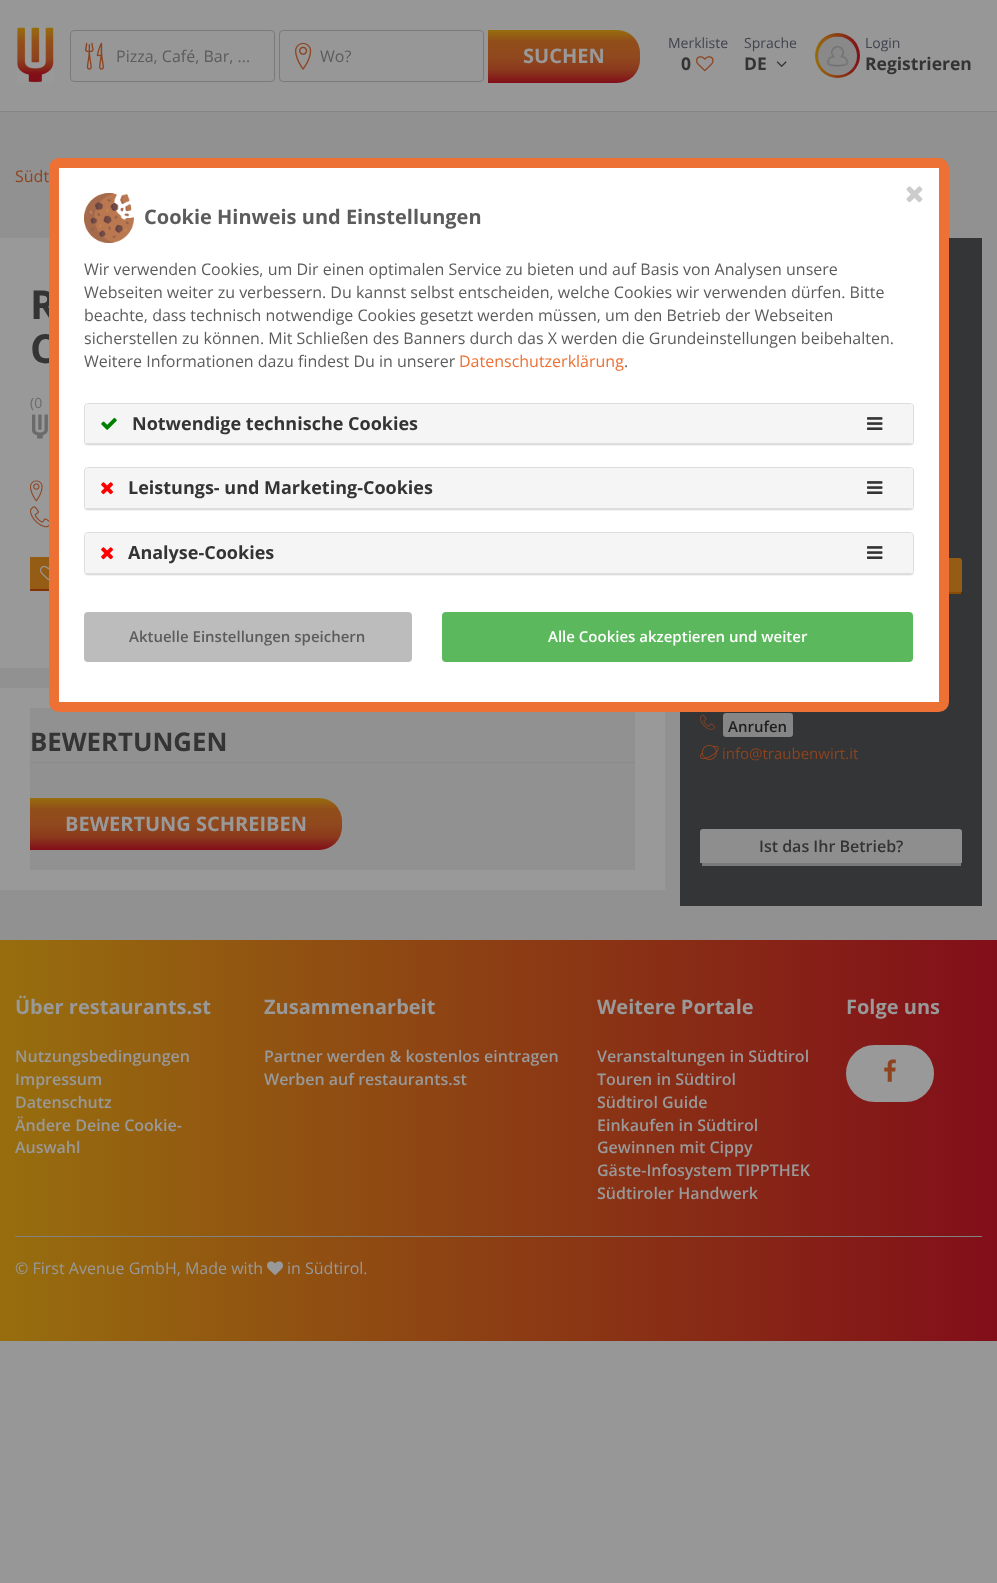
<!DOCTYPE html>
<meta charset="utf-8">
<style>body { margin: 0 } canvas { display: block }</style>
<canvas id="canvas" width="997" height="1583"></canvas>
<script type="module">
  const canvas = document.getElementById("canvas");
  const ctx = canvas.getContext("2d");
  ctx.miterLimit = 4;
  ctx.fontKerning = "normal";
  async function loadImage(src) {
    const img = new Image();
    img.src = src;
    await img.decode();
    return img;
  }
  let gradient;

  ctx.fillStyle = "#979797";
  ctx.fillRect(0, 0, 997, 1583);
  ctx.fillStyle = "#858585";
  ctx.fillRect(0, 111, 997, 1);
  ctx.drawImage(await loadImage("img1.png"), 17, 27, 37, 56);
  ctx.beginPath();
  ctx.roundRect(70.5, 30.5, 204, 51, 3.5);
  ctx.strokeStyle = "#7a7a7a";
  ctx.stroke();
  ctx.drawImage(await loadImage("img2.png"), 85, 42, 19, 28);
  ctx.font = "16px Open Sans";
  ctx.fillStyle = "#5c5c5c";
  ctx.fillText("Pizza, Café, Bar, ...", 116, 62);
  ctx.beginPath();
  ctx.roundRect(279.5, 30.5, 204, 51, 3.5);
  ctx.stroke();
  ctx.drawImage(await loadImage("img3.png"), 295, 42, 17, 28);
  ctx.fillText("Wo?", 320, 62);
  gradient = ctx.createLinearGradient(564, 30, 564, 83);
  gradient.addColorStop(0, "#976e0e");
  gradient.addColorStop(0.22, "#924d1b");
  gradient.addColorStop(0.5, "#90491d");
  gradient.addColorStop(0.75, "#8b391d");
  gradient.addColorStop(1, "#820e19");
  ctx.fillStyle = gradient;
  ctx.beginPath();
  ctx.roundRect(488, 30, 152, 53, [0, 23, 23, 0]);
  ctx.fill();
  ctx.font = "bold 20px Open Sans";
  ctx.fillStyle = "#999999";
  ctx.fillText("SUCHEN", 523, 63);
  ctx.font = "14px Open Sans";
  ctx.fillStyle = "#414350";
  ctx.fillText("Merkliste", 668, 48);
  ctx.font = "bold 17.5px Open Sans";
  ctx.fillStyle = "#343434";
  ctx.fillText("0", 681, 70);
  ctx.drawImage(await loadImage("img4.png"), 696, 56, 18, 16);
  ctx.font = "14px Open Sans";
  ctx.fillStyle = "#414350";
  ctx.fillText("Sprache", 744, 48);
  ctx.font = "bold 17.5px Open Sans";
  ctx.fillStyle = "#343434";
  ctx.fillText("DE", 744, 70);
  ctx.drawImage(await loadImage("img5.png"), 776, 61, 11, 6);
  gradient = ctx.createLinearGradient(815, 56, 860, 56);
  gradient.addColorStop(0, "#976d0d");
  gradient.addColorStop(1, "#810e19");
  ctx.fillStyle = gradient;
  ctx.beginPath();
  ctx.arc(837.5, 55.5, 22.5, 0, Math.PI * 2);
  ctx.fill();
  ctx.drawImage(await loadImage("img6.png"), 818, 36, 39, 40);
  ctx.font = "14px Open Sans";
  ctx.fillStyle = "#414350";
  ctx.fillText("Login", 865, 48);
  ctx.font = "bold 17.5px Open Sans";
  ctx.fillStyle = "#343434";
  ctx.fillText("Registrieren", 865, 70);
  ctx.fillStyle = "#919191";
  ctx.fillRect(0, 112, 997, 828);
  ctx.font = "16px Open Sans";
  ctx.fillStyle = "#8e431f";
  ctx.fillText("Südt", 15, 182);
  ctx.fillStyle = "#999999";
  ctx.fillRect(0, 238, 49, 430);
  ctx.font = "bold 40px Open Sans";
  ctx.fillStyle = "#343434";
  ctx.fillText("R", 30, 319);
  ctx.fillText("C", 30, 363);
  ctx.font = "14px Open Sans";
  ctx.fillStyle = "#6b6b6b";
  ctx.fillText("(0", 30, 408);
  ctx.drawImage(await loadImage("img7.png"), 32, 414, 16, 25);
  ctx.drawImage(await loadImage("img8.png"), 30, 480, 13, 22);
  ctx.drawImage(await loadImage("img9.png"), 30, 506, 19, 22);
  ctx.fillStyle = "#955c16";
  ctx.beginPath();
  ctx.moveTo(30, 557);
  ctx.lineTo(190, 557);
  ctx.bezierCurveTo(199, 557, 207, 565, 207, 574);
  ctx.bezierCurveTo(207, 582, 199, 589, 190, 589);
  ctx.lineTo(30, 589);
  ctx.closePath();
  ctx.fill();
  ctx.fillStyle = "#83320b";
  ctx.fillRect(30, 589, 19, 2);
  ctx.drawImage(await loadImage("img10.png"), 40, 565, 9, 16);
  ctx.fillStyle = "#999999";
  ctx.fillRect(0, 688, 665, 202);
  ctx.fillStyle = "#919191";
  ctx.fillRect(30, 708, 605, 162);
  ctx.beginPath();
  ctx.moveTo(30, 762.5);
  ctx.lineTo(635, 762.5);
  ctx.strokeStyle = "#858585";
  ctx.setLineDash([1, 1]);
  ctx.stroke();
  ctx.font = "bold 25.75px Open Sans";
  ctx.fillStyle = "#343434";
  ctx.fillText("BEWERTUNGEN", 30, 751);
  gradient = ctx.createLinearGradient(186, 798, 186, 850);
  gradient.addColorStop(0, "#976e0e");
  gradient.addColorStop(0.22, "#924d1b");
  gradient.addColorStop(0.5, "#90491d");
  gradient.addColorStop(0.75, "#8b391d");
  gradient.addColorStop(1, "#820e19");
  ctx.fillStyle = gradient;
  ctx.beginPath();
  ctx.roundRect(30, 798, 312, 52, [0, 23, 23, 0]);
  ctx.fill();
  ctx.font = "bold 20px Open Sans";
  ctx.fillStyle = "#999999";
  ctx.fillText("BEWERTUNG SCHREIBEN", 65, 831);
  ctx.fillStyle = "#343536";
  ctx.fillRect(680, 238, 302, 668);
  ctx.fillStyle = "#955c16";
  ctx.beginPath();
  ctx.moveTo(703, 558);
  ctx.lineTo(959, 558);
  ctx.bezierCurveTo(961, 558, 962, 559, 962, 561);
  ctx.lineTo(962, 591);
  ctx.bezierCurveTo(962, 592, 961, 592, 959, 592);
  ctx.lineTo(703, 592);
  ctx.bezierCurveTo(701, 592, 700, 592, 700, 591);
  ctx.lineTo(700, 561);
  ctx.bezierCurveTo(700, 559, 701, 558, 703, 558);
  ctx.closePath();
  ctx.fill();
  ctx.fillStyle = "#884d04";
  ctx.fillRect(949, 592, 12, 2);
  ctx.drawImage(await loadImage("img11.png"), 700, 715, 15, 15);
  ctx.fillStyle = "#868686";
  ctx.beginPath();
  ctx.roundRect(723, 713, 70, 24, 3);
  ctx.fill();
  ctx.font = "600 15px Open Sans";
  ctx.fillStyle = "#1f1f1f";
  ctx.fillText("Anrufen", 728, 732);
  ctx.drawImage(await loadImage("img12.png"), 700, 744, 19, 16);
  ctx.font = "15px Open Sans";
  ctx.fillStyle = "#8e431f";
  ctx.fillText("info@traubenwirt.it", 722, 759);
  ctx.fillStyle = "#8f8e8e";
  ctx.beginPath();
  ctx.moveTo(703, 829);
  ctx.lineTo(959, 829);
  ctx.bezierCurveTo(961, 829, 962, 830, 962, 832);
  ctx.lineTo(962, 863);
  ctx.lineTo(700, 863);
  ctx.lineTo(700, 832);
  ctx.bezierCurveTo(700, 830, 701, 829, 703, 829);
  ctx.closePath();
  ctx.fill();
  ctx.fillStyle = "#7a7a7a";
  ctx.fillRect(702, 863, 259, 3);
  ctx.font = "600 16px Open Sans";
  ctx.fillStyle = "#343434";
  ctx.fillText("Ist das Ihr Betrieb?", 759, 852);
  ctx.fillStyle = "#ffffff";
  ctx.beginPath();
  ctx.roundRect(54, 163, 890, 544, 5);
  ctx.fill();
  ctx.strokeStyle = "#ed7034";
  ctx.lineWidth = 10;
  ctx.setLineDash([]);
  ctx.stroke();
  ctx.drawImage(await loadImage("img13.png"), 906, 186, 17, 17);
  ctx.drawImage(await loadImage("img14.png"), 84, 193, 50, 50);
  ctx.font = "bold 20px Open Sans";
  ctx.fillStyle = "#5c5c5c";
  ctx.fillText("Cookie Hinweis und Einstellungen", 144, 224);
  ctx.font = "16px Open Sans";
  ctx.fillText("Wir verwenden Cookies, um Dir einen optimalen Service zu bieten und auf Basis von Analysen unsere", 84, 275);
  ctx.fillText("Webseiten weiter zu verbessern. Du kannst selbst entscheiden, welche Cookies wir verwenden dürfen. Bitte", 84, 298);
  ctx.fillText("beachte, dass technisch notwendige Cookies gesetzt werden müssen, um den Betrieb der Webseiten", 84, 321);
  ctx.fillText("sicherstellen zu können. Mit Schließen des Banners durch das X werden die Grundeinstellungen beibehalten.", 84, 344);
  ctx.fillText("Weitere Informationen dazu findest Du in unserer", 84, 367);
  ctx.fillStyle = "#ed7034";
  ctx.fillText("Datenschutzerklärung", 459, 367);
  ctx.fillStyle = "#5c5c5c";
  ctx.fillText(".", 624, 367);
  ctx.fillStyle = "rgba(0, 0, 0, 0.05)";
  ctx.filter = "blur(0.5px)";
  ctx.beginPath();
  ctx.roundRect(84, 404, 830, 42, 4);
  ctx.fill();
  ctx.filter = "none";
  ctx.beginPath();
  ctx.roundRect(84.5, 403.5, 829, 41, 3.5);
  ctx.strokeStyle = "#dddddd";
  ctx.lineWidth = 1;
  ctx.stroke();
  ctx.fillStyle = "#f5f5f5";
  ctx.beginPath();
  ctx.roundRect(85, 404, 828, 40, [3, 3, 0, 0]);
  ctx.fill();
  ctx.fillStyle = "#dddddd";
  ctx.fillRect(85, 443, 828, 1);
  ctx.drawImage(await loadImage("img15.png"), 101, 417, 16, 13);
  ctx.font = "bold 18px Open Sans";
  ctx.fillStyle = "#343434";
  ctx.fillText("Notwendige technische Cookies", 132, 430);
  ctx.drawImage(await loadImage("img16.png"), 867, 417, 16, 13);
  ctx.fillStyle = "rgba(0, 0, 0, 0.05)";
  ctx.filter = "blur(0.5px)";
  ctx.beginPath();
  ctx.roundRect(84, 468, 830, 43, 4);
  ctx.fill();
  ctx.filter = "none";
  ctx.beginPath();
  ctx.roundRect(84.5, 467.5, 829, 42, 3.5);
  ctx.stroke();
  ctx.fillStyle = "#f5f5f5";
  ctx.beginPath();
  ctx.roundRect(85, 468, 828, 41, [3, 3, 0, 0]);
  ctx.fill();
  ctx.fillStyle = "#dddddd";
  ctx.fillRect(85, 508, 828, 1);
  ctx.drawImage(await loadImage("img17.png"), 101, 482, 12, 13);
  ctx.fillStyle = "#343434";
  ctx.fillText("Leistungs- und Marketing-Cookies", 128, 494);
  ctx.drawImage(await loadImage("img16.png"), 867, 481, 16, 13);
  ctx.fillStyle = "rgba(0, 0, 0, 0.05)";
  ctx.filter = "blur(0.5px)";
  ctx.beginPath();
  ctx.roundRect(84, 533, 830, 43, 4);
  ctx.fill();
  ctx.filter = "none";
  ctx.beginPath();
  ctx.roundRect(84.5, 532.5, 829, 42, 3.5);
  ctx.stroke();
  ctx.fillStyle = "#f5f5f5";
  ctx.beginPath();
  ctx.roundRect(85, 533, 828, 41, [3, 3, 0, 0]);
  ctx.fill();
  ctx.fillStyle = "#dddddd";
  ctx.fillRect(85, 573, 828, 1);
  ctx.drawImage(await loadImage("img17.png"), 101, 547, 12, 13);
  ctx.fillStyle = "#343434";
  ctx.fillText("Analyse-Cookies", 128, 559);
  ctx.drawImage(await loadImage("img16.png"), 867, 546, 16, 13);
  ctx.fillStyle = "#bcbcbc";
  ctx.beginPath();
  ctx.roundRect(84, 612, 328, 50, 4);
  ctx.fill();
  ctx.font = "600 15px Open Sans";
  ctx.fillStyle = "#5c5c5c";
  ctx.fillText("Aktuelle Einstellungen speichern", 129, 642);
  ctx.fillStyle = "#5cb85c";
  ctx.beginPath();
  ctx.roundRect(442, 612, 471, 50, 4);
  ctx.fill();
  ctx.fillStyle = "#ffffff";
  ctx.fillText("Alle Cookies akzeptieren und weiter", 548, 642);
  gradient = ctx.createLinearGradient(0, 1141, 997, 1141);
  gradient.addColorStop(0, "#976e0e");
  gradient.addColorStop(1, "#820e19");
  ctx.fillStyle = gradient;
  ctx.fillRect(0, 940, 997, 401);
  ctx.font = "bold 20px Open Sans";
  ctx.fillStyle = "#999999";
  ctx.fillText("Über restaurants.st", 15, 1014);
  ctx.font = "600 16px Open Sans";
  ctx.fillText("Nutzungsbedingungen", 15, 1062);
  ctx.fillText("Impressum", 15, 1085);
  ctx.fillText("Datenschutz", 15, 1108);
  ctx.fillText("Ändere Deine Cookie-", 15, 1131);
  ctx.fillText("Auswahl", 15, 1153);
  ctx.font = "bold 20px Open Sans";
  ctx.fillText("Zusammenarbeit", 264, 1014);
  ctx.font = "600 16px Open Sans";
  ctx.fillText("Partner werden & kostenlos eintragen", 264, 1062);
  ctx.fillText("Werben auf restaurants.st", 264, 1085);
  ctx.font = "bold 20px Open Sans";
  ctx.fillText("Weitere Portale", 597, 1014);
  ctx.font = "600 16px Open Sans";
  ctx.fillText("Veranstaltungen in Südtirol", 597, 1062);
  ctx.fillText("Touren in Südtirol", 597, 1085);
  ctx.fillText("Südtirol Guide", 597, 1108);
  ctx.fillText("Einkaufen in Südtirol", 597, 1131);
  ctx.fillText("Gewinnen mit Cippy", 597, 1153);
  ctx.fillText("Gäste-Infosystem TIPPTHEK", 597, 1176);
  ctx.fillText("Südtiroler Handwerk", 597, 1199);
  ctx.font = "bold 20px Open Sans";
  ctx.fillText("Folge uns", 846, 1014);
  ctx.beginPath();
  ctx.roundRect(847, 1046, 86, 55, 27.5);
  ctx.fill();
  ctx.strokeStyle = "#999999";
  ctx.lineWidth = 2;
  ctx.stroke();
  ctx.drawImage(await loadImage("img18.png"), 884, 1059, 12, 23);
  ctx.fillStyle = "#828282";
  ctx.fillRect(15, 1236, 967, 1);
  ctx.font = "16px Open Sans";
  ctx.fillStyle = "#999999";
  ctx.fillText("© First Avenue GmbH, Made with", 15, 1274);
  ctx.drawImage(await loadImage("img19.png"), 267, 1261, 16, 15);
  ctx.fillText("in Südtirol.", 287, 1274);
</script>
